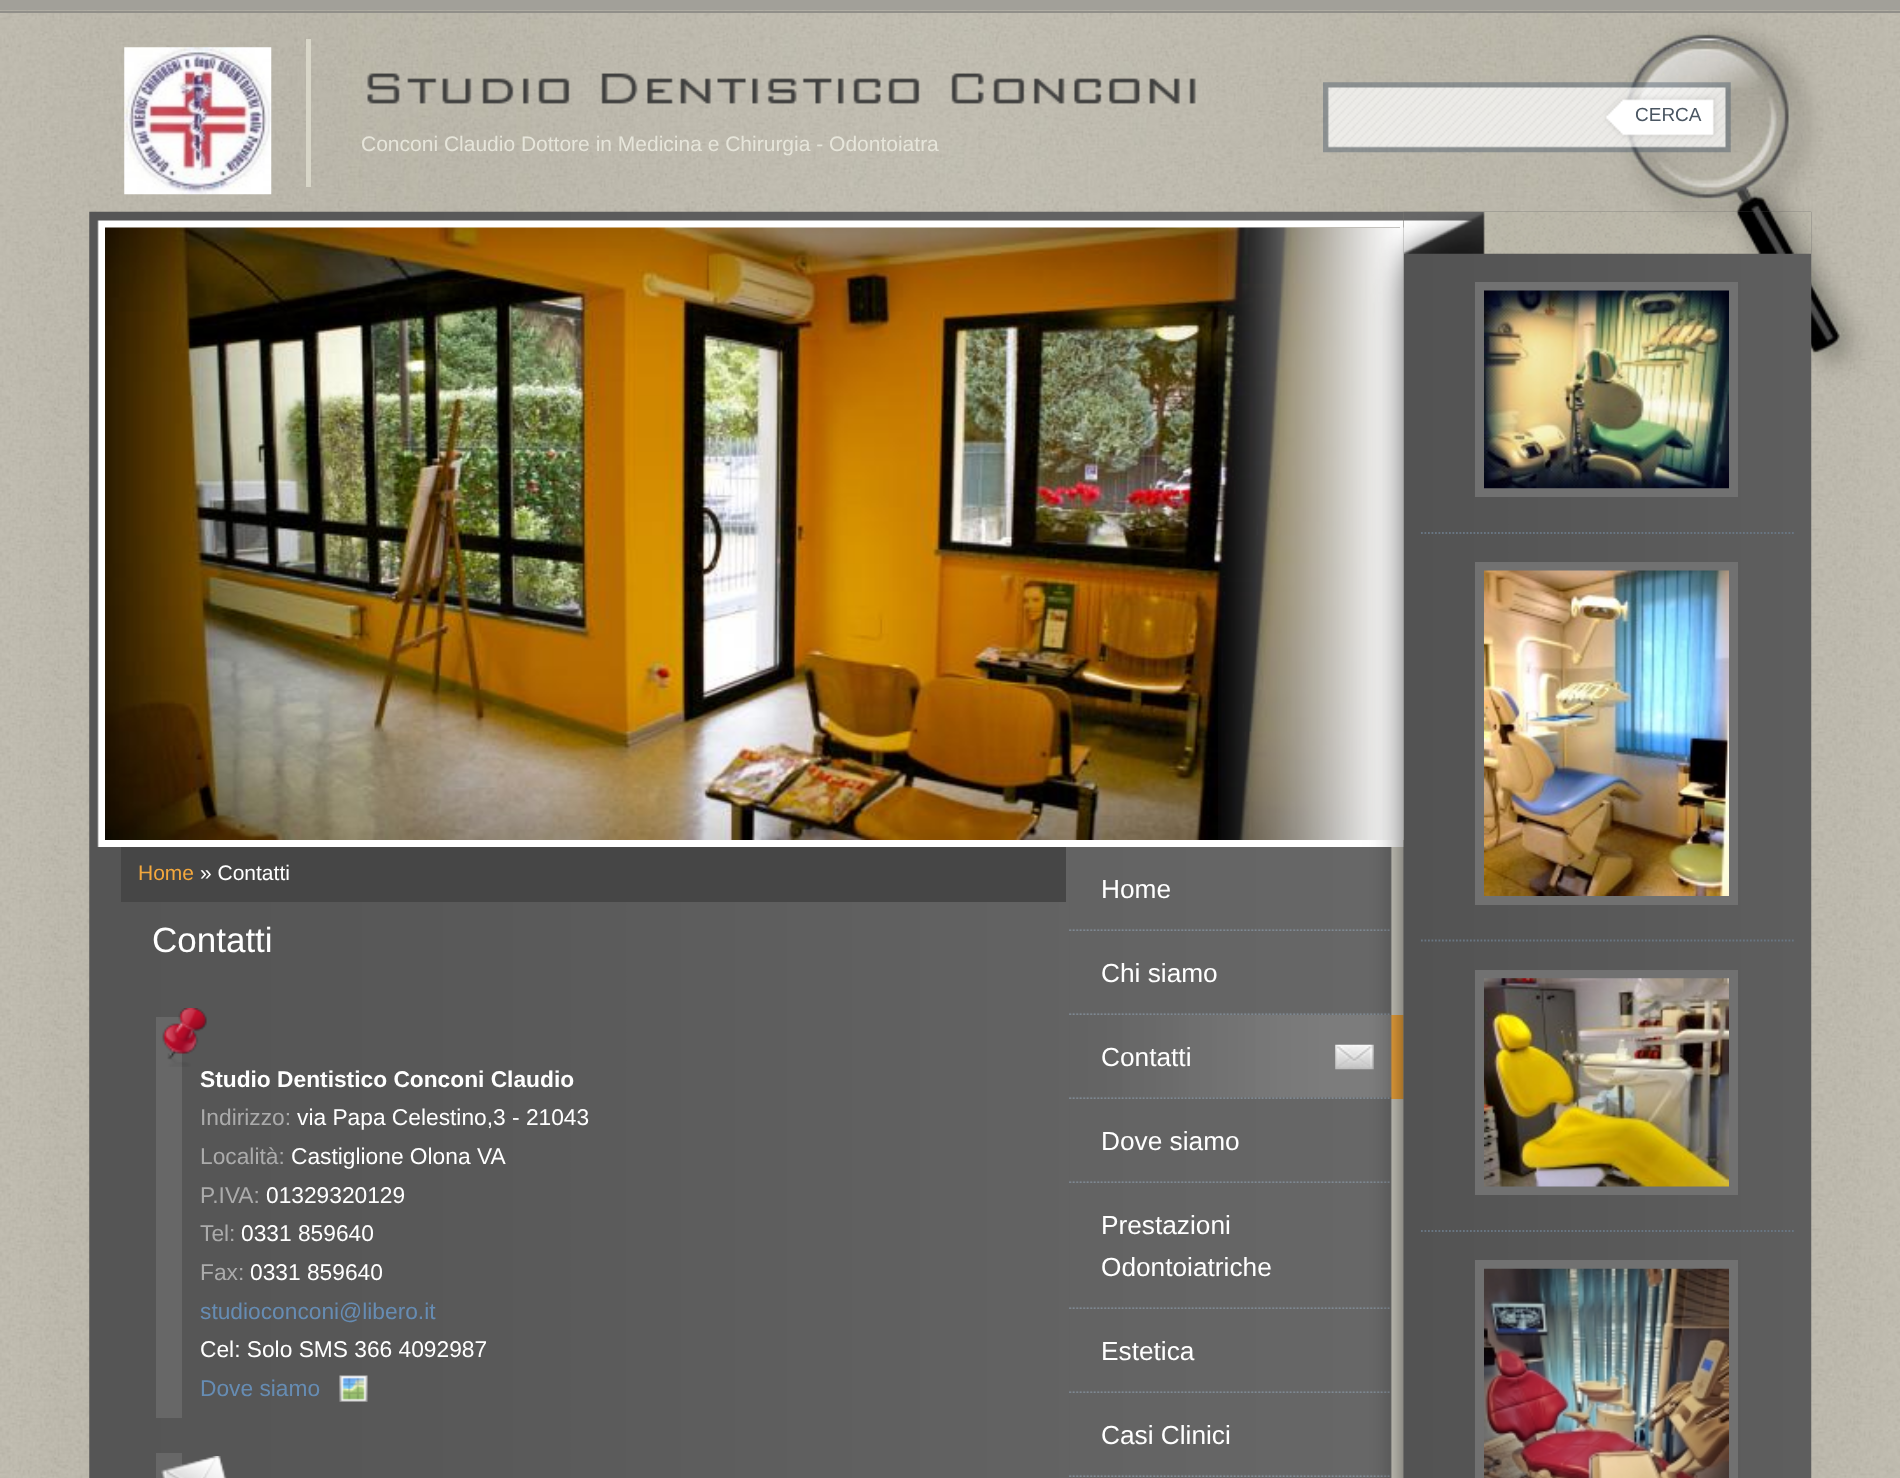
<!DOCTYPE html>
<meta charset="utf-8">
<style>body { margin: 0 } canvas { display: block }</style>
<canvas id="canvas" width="1900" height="1478"></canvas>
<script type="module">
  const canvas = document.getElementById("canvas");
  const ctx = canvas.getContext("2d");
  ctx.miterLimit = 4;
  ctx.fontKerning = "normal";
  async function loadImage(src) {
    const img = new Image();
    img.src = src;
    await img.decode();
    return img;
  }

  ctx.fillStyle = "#ffffff";
  ctx.fillRect(0, 0, 1900, 1478);
  ctx.drawImage(await loadImage("img1.png"), 0, 386, 1900, 1092);
  ctx.fillStyle = "#a2a099";
  ctx.fillRect(0, 0, 1900, 11);
  ctx.drawImage(await loadImage("img2.png"), 0, 10, 1900, 377);
  ctx.fillStyle = "#918f89";
  ctx.fillRect(0, 11, 1900, 2);
  ctx.drawImage(await loadImage("img3.png"), 1323, 82, 408, 71);
  ctx.font = "19px Liberation Sans";
  ctx.fillStyle = "#4a5662";
  ctx.fillText("CERCA", 1635, 121);
  ctx.drawImage(await loadImage("img4.png"), 89, 211, 1315, 636);
  ctx.drawImage(await loadImage("img5.png"), 124, 47, 148, 148);
  ctx.fillStyle = "#d8d6c8";
  ctx.fillRect(306, 39, 5, 148);
  ctx.drawImage(await loadImage("img6.png"), 367, 73, 829, 31);
  ctx.font = "21px Liberation Sans";
  ctx.fillStyle = "#e6e5da";
  ctx.fillText("Conconi Claudio Dottore in Medicina e Chirurgia - Odontoiatra", 361, 151);
  ctx.drawImage(await loadImage("img7.png"), 105, 227, 1295, 613);
  ctx.drawImage(await loadImage("img9.png"), 89, 847, 1315, 631);
  ctx.drawImage(await loadImage("img13.png"), 1069, 847, 335, 84);
  ctx.drawImage(await loadImage("img14.png"), 1069, 931, 335, 84);
  ctx.drawImage(await loadImage("img15.png"), 1069, 1015, 335, 84);
  ctx.drawImage(await loadImage("img17.png"), 1069, 1099, 335, 84);
  ctx.drawImage(await loadImage("img18.png"), 1069, 1183, 335, 126);
  ctx.drawImage(await loadImage("img19.png"), 1069, 1309, 335, 84);
  ctx.drawImage(await loadImage("img20.png"), 1069, 1393, 335, 84);
  ctx.drawImage(await loadImage("img21.png"), 1390, 1477, 14, 1);
  ctx.drawImage(await loadImage("img22.png"), 1403, 211, 409, 1267);
  ctx.drawImage(await loadImage("img23.png"), 1403, 211, 408, 43);
  ctx.drawImage(await loadImage("img8.png"), 1218, 227, 186, 613);
  ctx.fillStyle = "#464646";
  ctx.fillRect(121, 847, 945, 55);
  ctx.fillStyle = "#f4a83d";
  ctx.fillText("Home", 138, 880);
  ctx.fillStyle = "#ffffff";
  ctx.fillText("» Contatti", 200, 880);
  ctx.font = "35px Liberation Sans";
  ctx.fillText("Contatti", 152, 952);
  ctx.fillStyle = "#676767";
  ctx.fillRect(156, 1017, 26, 401);
  ctx.drawImage(await loadImage("img10.png"), 162, 1008, 45, 59);
  ctx.font = "bold 22.75px Liberation Sans";
  ctx.fillStyle = "#ffffff";
  ctx.fillText("Studio Dentistico Conconi Claudio", 200, 1087);
  ctx.font = "22.75px Liberation Sans";
  ctx.fillStyle = "#ababab";
  ctx.fillText("Indirizzo:", 200, 1125);
  ctx.fillStyle = "#ffffff";
  ctx.fillText("via Papa Celestino,3 - 21043", 297, 1125);
  ctx.fillStyle = "#ababab";
  ctx.fillText("Località:", 200, 1164);
  ctx.fillStyle = "#ffffff";
  ctx.fillText("Castiglione Olona VA", 291, 1164);
  ctx.fillStyle = "#ababab";
  ctx.fillText("P.IVA:", 200, 1203);
  ctx.fillStyle = "#ffffff";
  ctx.fillText("01329320129", 266, 1203);
  ctx.fillStyle = "#ababab";
  ctx.fillText("Tel:", 200, 1241);
  ctx.fillStyle = "#ffffff";
  ctx.fillText("0331 859640", 241, 1241);
  ctx.fillStyle = "#ababab";
  ctx.fillText("Fax:", 200, 1280);
  ctx.fillStyle = "#ffffff";
  ctx.fillText("0331 859640", 250, 1280);
  ctx.fillStyle = "#668cb3";
  ctx.fillText("studioconconi@libero.it", 200, 1319);
  ctx.fillStyle = "#ffffff";
  ctx.fillText("Cel: Solo SMS 366 4092987", 200, 1357);
  ctx.fillStyle = "#668cb3";
  ctx.fillText("Dove siamo", 200, 1396);
  ctx.drawImage(await loadImage("img11.png"), 339, 1375, 29, 27);
  ctx.fillStyle = "#676767";
  ctx.fillRect(156, 1453, 26, 25);
  ctx.drawImage(await loadImage("img12.png"), 161, 1456, 66, 22);
  ctx.font = "26.25px Liberation Sans";
  ctx.fillStyle = "#ffffff";
  ctx.fillText("Home", 1101, 898);
  ctx.fillText("Chi siamo", 1101, 982);
  ctx.drawImage(await loadImage("img16.png"), 1335, 1044, 39, 26);
  ctx.fillText("Contatti", 1101, 1066);
  ctx.fillText("Dove siamo", 1101, 1150);
  ctx.fillText("Prestazioni", 1101, 1234);
  ctx.fillText("Odontoiatriche", 1101, 1276);
  ctx.fillText("Estetica", 1101, 1360);
  ctx.fillText("Casi Clinici", 1101, 1444);
  ctx.fillStyle = "#717171";
  ctx.fillRect(1475, 282, 263, 215);
  ctx.drawImage(await loadImage("img24.png"), 1484, 290, 245, 199);
  ctx.beginPath();
  ctx.moveTo(1421, 533);
  ctx.lineTo(1794, 533);
  ctx.strokeStyle = "#697682";
  ctx.lineWidth = 1.8;
  ctx.setLineDash([1.75, 1.75]);
  ctx.stroke();
  ctx.fillRect(1475, 562, 263, 343);
  ctx.drawImage(await loadImage("img25.png"), 1484, 570, 245, 326);
  ctx.beginPath();
  ctx.moveTo(1421, 940.5);
  ctx.lineTo(1794, 940.5);
  ctx.stroke();
  ctx.fillRect(1475, 970, 263, 225);
  ctx.drawImage(await loadImage("img26.png"), 1484, 978, 245, 209);
  ctx.beginPath();
  ctx.moveTo(1421, 1231);
  ctx.lineTo(1794, 1231);
  ctx.stroke();
  ctx.fillRect(1475, 1260, 263, 218);
  ctx.drawImage(await loadImage("img27.png"), 1484, 1268, 245, 210);
</script>
